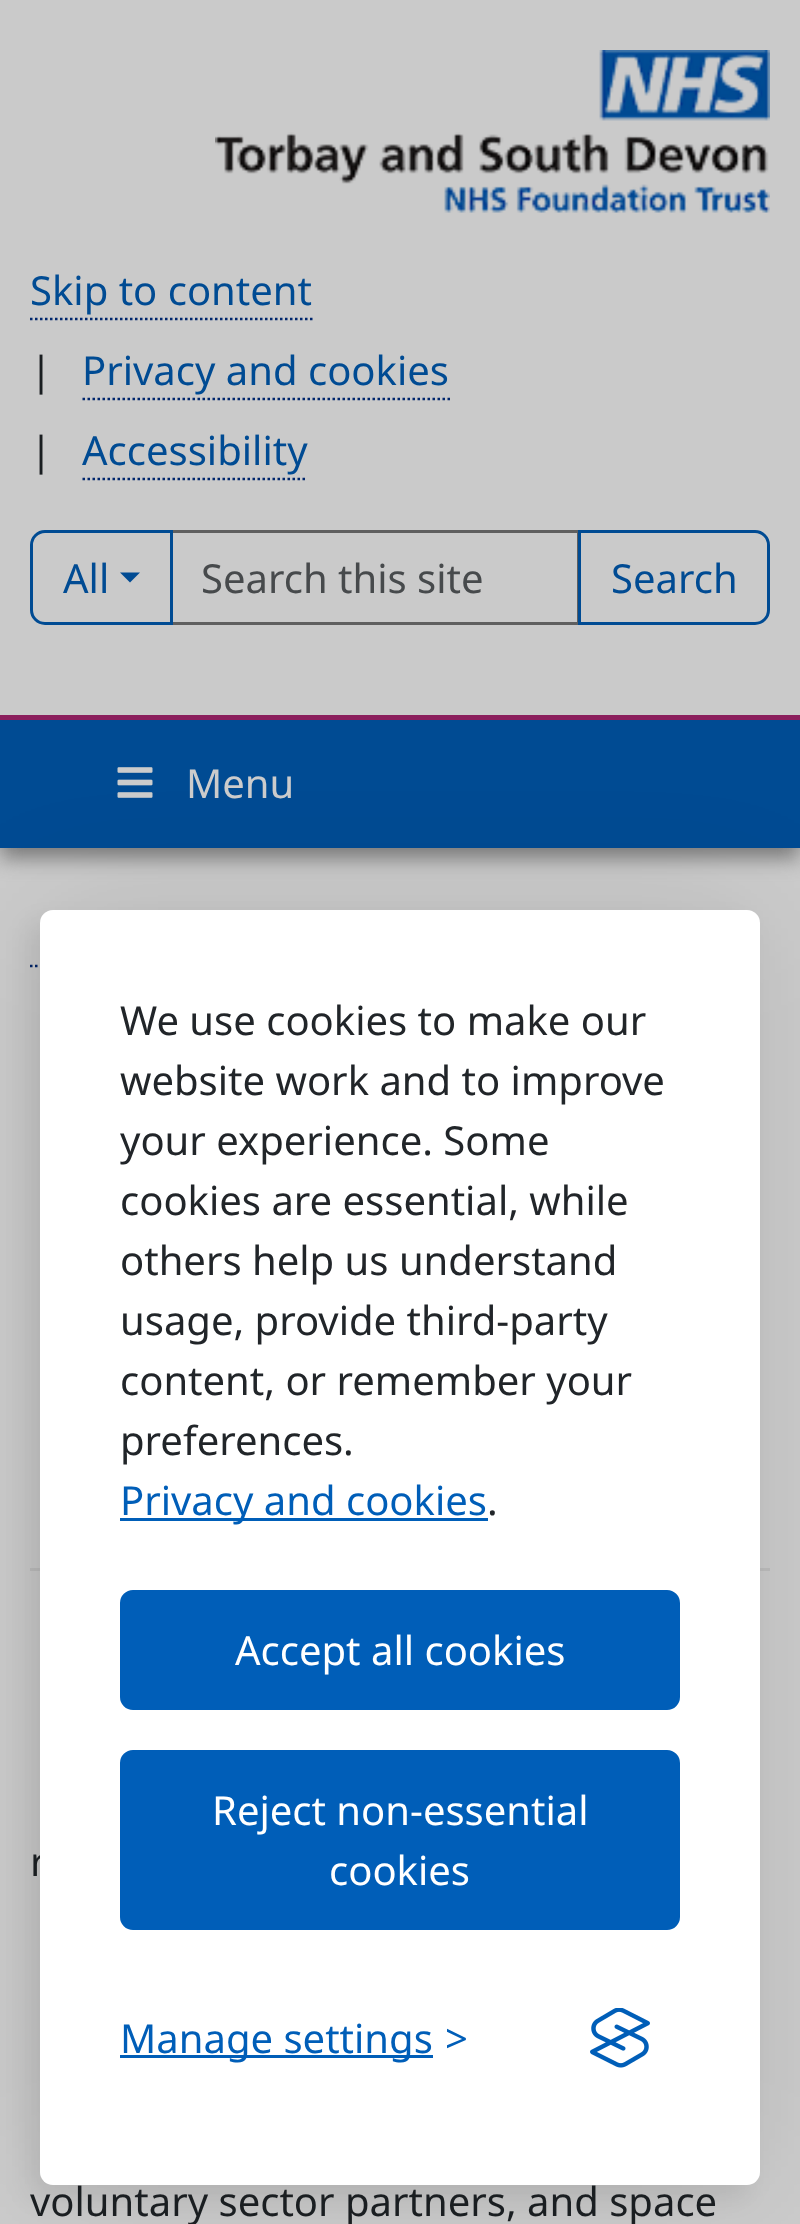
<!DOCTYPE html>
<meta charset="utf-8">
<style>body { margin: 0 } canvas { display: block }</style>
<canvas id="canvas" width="800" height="2224"></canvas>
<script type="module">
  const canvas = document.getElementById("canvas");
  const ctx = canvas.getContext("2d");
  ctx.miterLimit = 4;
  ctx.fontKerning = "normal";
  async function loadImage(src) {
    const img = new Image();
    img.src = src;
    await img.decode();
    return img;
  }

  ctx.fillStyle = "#cccccc";
  ctx.fillRect(0, 0, 800, 2224);
  ctx.fillStyle = "#7a7a7a";
  ctx.filter = "blur(10px)";
  ctx.beginPath();
  ctx.rect(0, 10, 800, 848);
  ctx.fill();
  ctx.filter = "none";
  ctx.fillStyle = "#cacaca";
  ctx.fillRect(0, 0, 800, 715);
  ctx.drawImage(await loadImage("img1.png"), 215, 50, 555, 163);
  ctx.font = "40px Noto Sans";
  ctx.fillStyle = "#004b93";
  ctx.fillText("Skip to content", 30, 305);
  ctx.beginPath();
  ctx.moveTo(30, 319);
  ctx.lineTo(312.5, 319);
  ctx.strokeStyle = "#00266c";
  ctx.lineWidth = 2.5;
  ctx.setLineDash([2.5, 2.5]);
  ctx.stroke();
  ctx.fillStyle = "#1a1e21";
  ctx.fillText("|", 30, 385);
  ctx.fillStyle = "#004b93";
  ctx.fillText("Privacy and cookies", 82, 385);
  ctx.beginPath();
  ctx.moveTo(82.5, 399);
  ctx.lineTo(450, 399);
  ctx.stroke();
  ctx.fillStyle = "#1a1e21";
  ctx.fillText("|", 30, 465);
  ctx.fillStyle = "#004b93";
  ctx.fillText("Accessibility", 82, 465);
  ctx.beginPath();
  ctx.moveTo(82.5, 479);
  ctx.lineTo(307.5, 479);
  ctx.stroke();
  ctx.strokeStyle = "#5f5f5f";
  ctx.lineWidth = 3;
  ctx.setLineDash([]);
  ctx.strokeRect(171.5, 531.5, 407, 92);
  ctx.beginPath();
  ctx.roundRect(31.5, 531.5, 140, 92, [13.5, 0, 0, 13.5]);
  ctx.strokeStyle = "#004b93";
  ctx.stroke();
  ctx.fillText("All", 63, 593);
  ctx.beginPath();
  ctx.moveTo(120, 572.5);
  ctx.lineTo(140, 572.5);
  ctx.lineTo(130, 582.5);
  ctx.closePath();
  ctx.fill();
  ctx.fillStyle = "#474a4c";
  ctx.fillText("Search this site", 201, 593);
  ctx.beginPath();
  ctx.roundRect(579.5, 531.5, 189, 92, [0, 13.5, 13.5, 0]);
  ctx.stroke();
  ctx.fillStyle = "#004b93";
  ctx.fillText("Search", 611, 593);
  ctx.fillRect(0, 720, 800, 128);
  ctx.fillStyle = "#8b1e5c";
  ctx.fillRect(0, 715, 800, 5);
  ctx.drawImage(await loadImage("img2.png"), 117, 767, 36, 31);
  ctx.fillStyle = "#cccccc";
  ctx.fillText("Menu", 186, 798);
  ctx.beginPath();
  ctx.moveTo(30, 966);
  ctx.lineTo(145, 966);
  ctx.strokeStyle = "#00266c";
  ctx.lineWidth = 2.5;
  ctx.setLineDash([2.5, 2.5]);
  ctx.stroke();
  ctx.fillStyle = "#bebebe";
  ctx.fillRect(30, 1568, 740, 3);
  ctx.fillStyle = "rgba(0, 0, 0, 0.1)";
  ctx.filter = "blur(62.5px)";
  ctx.beginPath();
  ctx.roundRect(40, 910, 720, 1275, 13);
  ctx.fill();
  ctx.filter = "none";
  ctx.fillStyle = "rgba(0, 0, 0, 0.07)";
  ctx.filter = "blur(12.5px)";
  ctx.beginPath();
  ctx.roundRect(28, 923, 720, 1275, 13);
  ctx.fill();
  ctx.filter = "none";
  ctx.fillStyle = "#1a1e21";
  ctx.fillText("r", 30, 1876);
  ctx.fillStyle = "#ffffff";
  ctx.beginPath();
  ctx.roundRect(40, 910, 720, 1275, 13);
  ctx.fill();
  ctx.fillStyle = "#212529";
  ctx.fillText("We use cookies to make our", 120, 1035);
  ctx.fillText("website work and to improve", 120, 1095);
  ctx.fillText("your experience. Some", 120, 1155);
  ctx.fillText("cookies are essential, while", 120, 1215);
  ctx.fillText("others help us understand", 120, 1275);
  ctx.fillText("usage, provide third-party", 120, 1335);
  ctx.fillText("content, or remember your", 120, 1395);
  ctx.fillText("preferences.", 120, 1455);
  ctx.fillStyle = "#005eb8";
  ctx.fillRect(120, 1518, 368, 3);
  ctx.fillText("Privacy and cookies", 120, 1515);
  ctx.fillStyle = "#212529";
  ctx.fillText(".", 487, 1515);
  ctx.fillStyle = "#005eb8";
  ctx.beginPath();
  ctx.roundRect(122.5, 1592.5, 555, 115, 10.5);
  ctx.fill();
  ctx.strokeStyle = "#005eb8";
  ctx.lineWidth = 5;
  ctx.setLineDash([]);
  ctx.stroke();
  ctx.fillStyle = "#ffffff";
  ctx.fillText("Accept all cookies", 235, 1665);
  ctx.fillStyle = "#005eb8";
  ctx.beginPath();
  ctx.roundRect(122.5, 1752.5, 555, 175, 10.5);
  ctx.fill();
  ctx.stroke();
  ctx.fillStyle = "#ffffff";
  ctx.fillText("Reject non-essential", 212, 1825);
  ctx.fillText("cookies", 329, 1885);
  ctx.fillStyle = "#005eb8";
  ctx.fillRect(120, 2055, 313, 3);
  ctx.fillText("Manage settings", 120, 2053);
  ctx.fillText(">", 445, 2053);
  ctx.drawImage(await loadImage("img3.png"), 590, 2008, 60, 60);
  ctx.fillStyle = "#1a1e21";
  ctx.fillText("voluntary sector partners, and space", 30, 2216);
</script>
